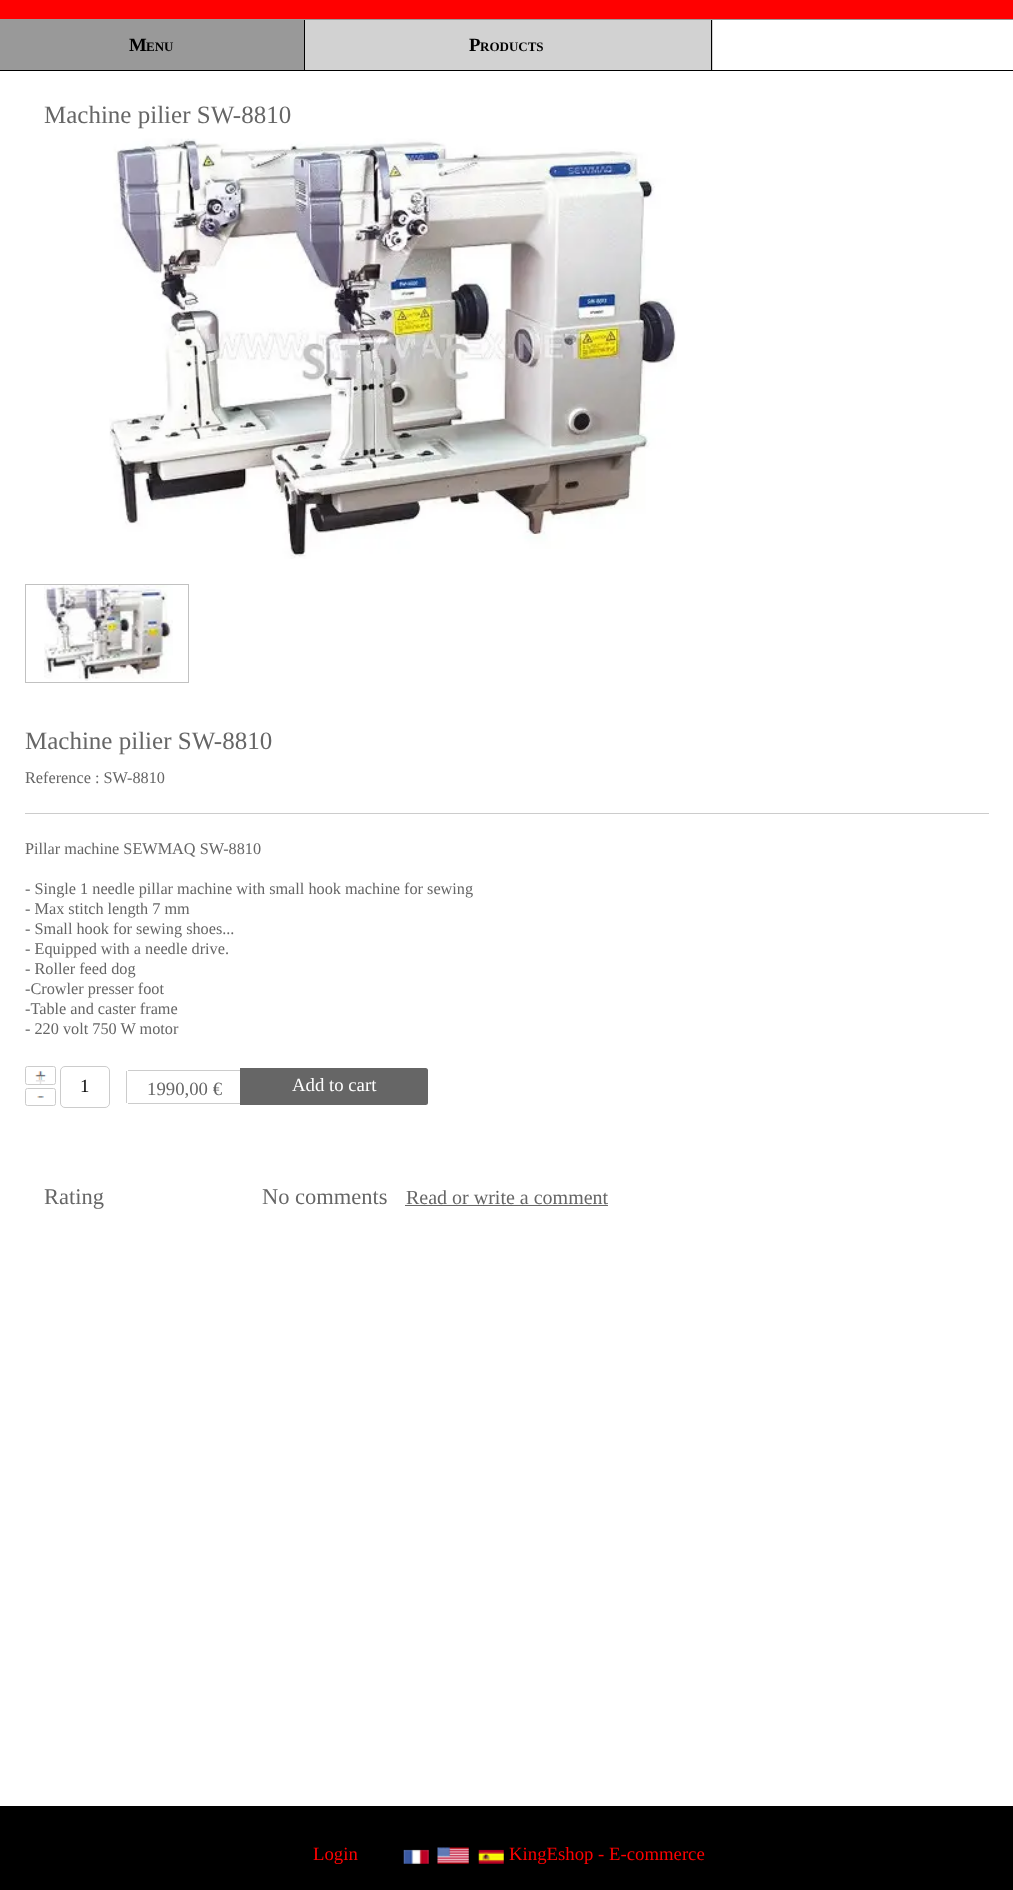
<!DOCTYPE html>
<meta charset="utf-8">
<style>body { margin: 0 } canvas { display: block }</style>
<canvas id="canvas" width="1013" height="1890"></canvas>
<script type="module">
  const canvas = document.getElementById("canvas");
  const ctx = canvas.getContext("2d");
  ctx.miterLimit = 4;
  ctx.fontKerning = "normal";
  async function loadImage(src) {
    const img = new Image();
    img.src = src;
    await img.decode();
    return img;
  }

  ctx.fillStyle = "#ffffff";
  ctx.fillRect(0, 0, 1013, 1890);
  ctx.fillStyle = "#ff0000";
  ctx.fillRect(0, 0, 1013, 19);
  ctx.fillStyle = "#999999";
  ctx.fillRect(0, 19, 1013, 1);
  ctx.fillStyle = "#000000";
  ctx.fillRect(0, 70, 1013, 1);
  ctx.fillStyle = "#999999";
  ctx.fillRect(0, 20, 304, 50);
  ctx.fillStyle = "#000000";
  ctx.fillRect(304, 20, 1, 50);
  ctx.font = "bold 18.75px Liberation Serif";
  ctx.fillText("M", 129, 51);
  ctx.font = "bold 13px Liberation Serif";
  ctx.fillText("ENU", 146, 51);
  ctx.fillStyle = "#d2d2d2";
  ctx.fillRect(305, 20, 408, 50);
  ctx.fillStyle = "#000000";
  ctx.fillRect(711, 20, 1, 50);
  ctx.font = "bold 18.75px Liberation Serif";
  ctx.fillText("P", 469, 51);
  ctx.font = "bold 13px Liberation Serif";
  ctx.fillText("RODUCTS", 480, 51);
  ctx.font = "25px Liberation Serif";
  ctx.fillStyle = "#666666";
  ctx.fillText("Machine pilier SW-8810", 44, 123);
  ctx.drawImage(await loadImage("img1.png"), 109, 138, 568, 421);
  ctx.strokeStyle = "#c1c1c1";
  ctx.strokeRect(25.5, 584.5, 163, 98);
  ctx.drawImage(await loadImage("img2.png"), 44, 585, 129, 96);
  ctx.fillText("Machine pilier SW-8810", 25, 749);
  ctx.fillStyle = "#cccccc";
  ctx.fillRect(25, 813, 964, 1);
  ctx.font = "16.25px Liberation Serif";
  ctx.fillStyle = "#666666";
  ctx.fillText("Reference : SW-8810", 25, 783);
  ctx.fillText("Pillar machine SEWMAQ SW-8810", 25, 854);
  ctx.fillText("- Single 1 needle pillar machine with small hook machine for sewing", 25, 894);
  ctx.fillText("- Max stitch length 7 mm", 25, 914);
  ctx.fillText("- Small hook for sewing shoes...", 25, 934);
  ctx.fillText("- Equipped with a needle drive.", 25, 954);
  ctx.fillText("- Roller feed dog", 25, 974);
  ctx.fillText("-Crowler presser foot", 25, 994);
  ctx.fillText("-Table and caster frame", 25, 1014);
  ctx.fillText("- 220 volt 750 W motor", 25, 1034);
  ctx.drawImage(await loadImage("img3.png"), 35, 1071, 12, 10);
  ctx.beginPath();
  ctx.roundRect(25.5, 1066.5, 30, 18, 2);
  ctx.strokeStyle = "#cccccc";
  ctx.stroke();
  ctx.save();
  ctx.beginPath();
  ctx.roundRect(26, 1068, 29, 16, 1);
  ctx.clip();
  ctx.font = "18.75px Liberation Sans";
  ctx.fillStyle = "#e5e3e4";
  ctx.fillText("+", 35, 1087);
  ctx.restore();
  ctx.drawImage(await loadImage("img4.png"), 37, 1096, 7, 2);
  ctx.beginPath();
  ctx.roundRect(25.5, 1088.5, 30, 17, 2);
  ctx.stroke();
  ctx.beginPath();
  ctx.roundRect(60.5, 1066.5, 49, 41, 4.5);
  ctx.stroke();
  ctx.font = "18.75px Liberation Serif";
  ctx.fillStyle = "#000000";
  ctx.fillText("1", 80, 1092);
  ctx.fillStyle = "#cccccc";
  ctx.fillRect(128, 1070, 112, 1);
  ctx.fillRect(128, 1103, 112, 1);
  ctx.fillRect(126, 1071, 1, 32);
  ctx.fillStyle = "#666666";
  ctx.fillText("1990,00 €", 147, 1095);
  ctx.beginPath();
  ctx.roundRect(240, 1068, 188, 37, [0, 2.5, 2.5, 0]);
  ctx.fill();
  ctx.fillStyle = "#ffffff";
  ctx.fillText("Add to cart", 292, 1091);
  ctx.font = "22.5px Liberation Serif";
  ctx.fillStyle = "#666666";
  ctx.fillText("Rating", 44, 1204);
  ctx.fillText("No comments", 262, 1204);
  ctx.font = "20px Liberation Serif";
  ctx.fillText("Read or write a comment", 406, 1204);
  ctx.fillRect(405, 1205, 203, 1);
  ctx.fillStyle = "#000000";
  ctx.fillRect(0, 1806, 1013, 84);
  ctx.font = "18.75px Liberation Serif";
  ctx.fillStyle = "#ff0000";
  ctx.fillText("Login", 313, 1860);
  ctx.drawImage(await loadImage("img5.png"), 403, 1849, 26, 15);
  ctx.drawImage(await loadImage("img6.png"), 437, 1847, 32, 17);
  ctx.drawImage(await loadImage("img7.png"), 478, 1849, 26, 15);
  ctx.fillText("KingEshop - E-commerce", 509, 1860);
</script>
